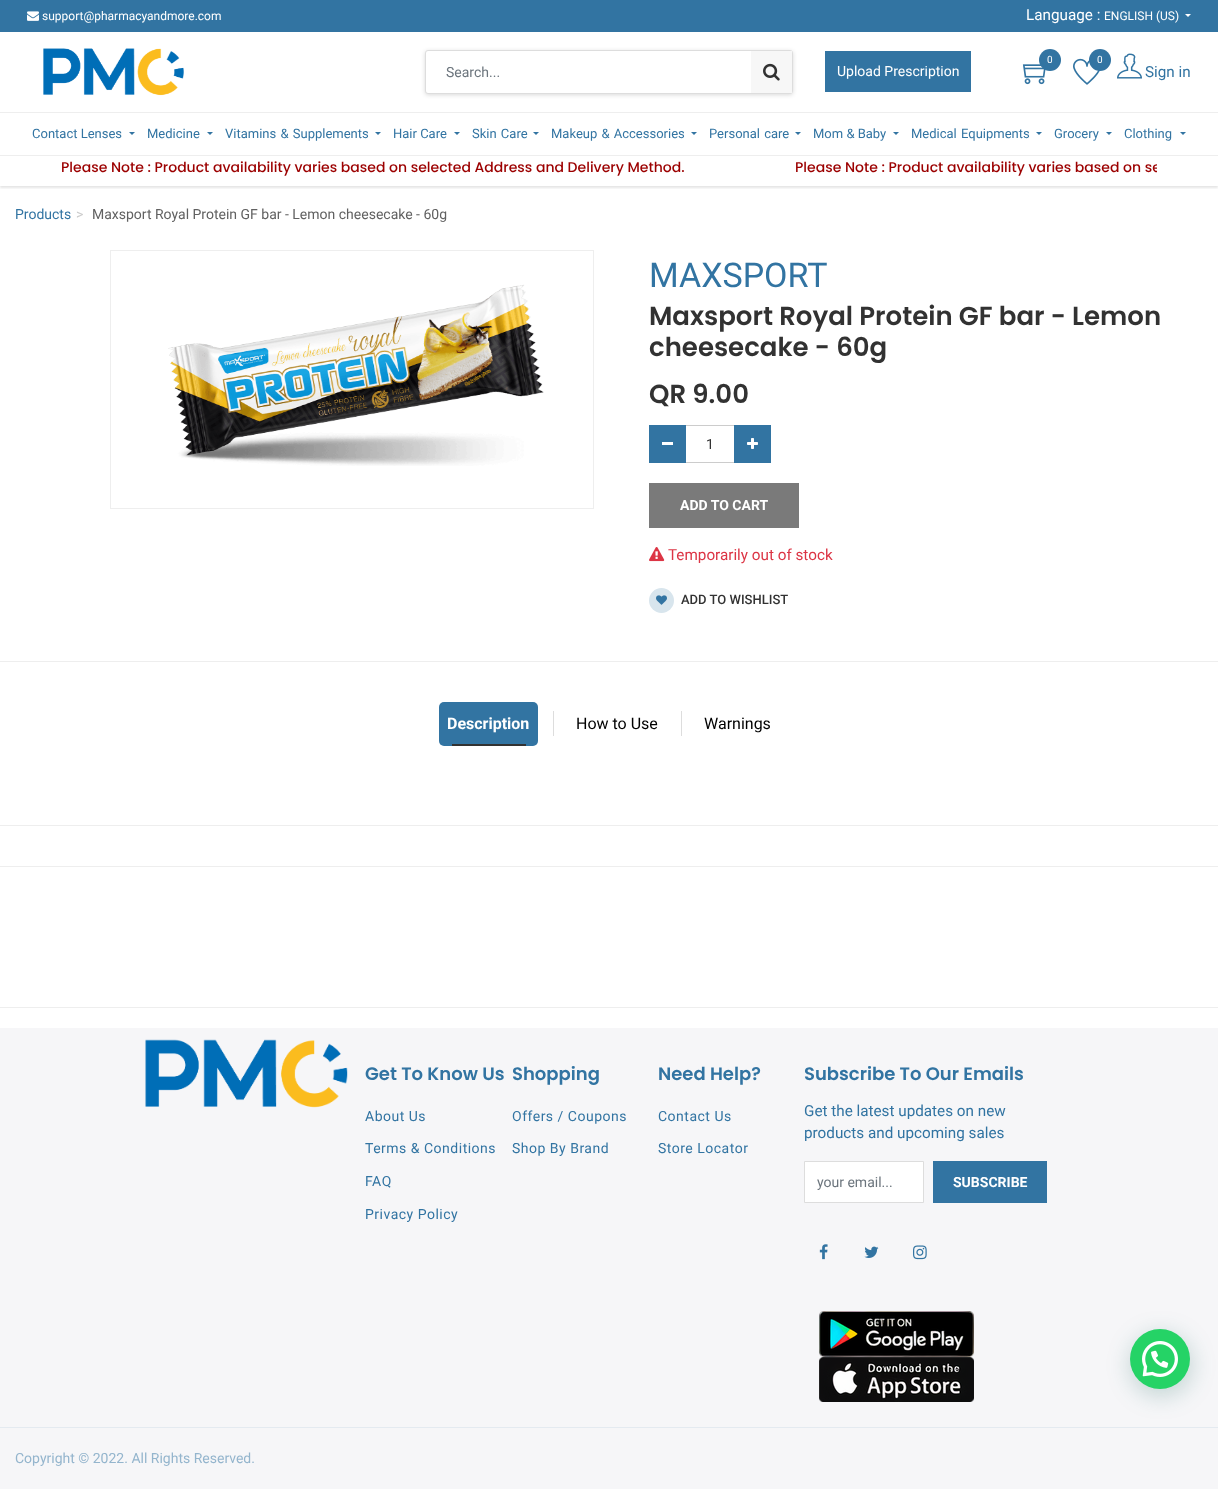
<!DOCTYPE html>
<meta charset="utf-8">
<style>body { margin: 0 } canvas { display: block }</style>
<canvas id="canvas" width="1218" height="1489"></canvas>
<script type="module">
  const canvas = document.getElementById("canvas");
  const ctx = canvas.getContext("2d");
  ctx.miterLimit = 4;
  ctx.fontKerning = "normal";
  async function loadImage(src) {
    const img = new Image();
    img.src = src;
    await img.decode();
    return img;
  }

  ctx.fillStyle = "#ffffff";
  ctx.fillRect(0, 0, 1218, 1489);
  ctx.save();
  ctx.beginPath();
  ctx.rect(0, 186, 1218, 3);
  ctx.clip();
  ctx.fillStyle = "rgba(0, 0, 0, 0.1)";
  ctx.filter = "blur(1px)";
  ctx.beginPath();
  ctx.rect(0, 2, 1218, 186);
  ctx.fill();
  ctx.filter = "none";
  ctx.restore();
  ctx.fillStyle = "#3274a2";
  ctx.fillRect(0, 0, 1218, 32);
  ctx.drawImage(await loadImage("img1.png"), 27, 11, 12, 10);
  ctx.font = "12px Roboto";
  ctx.fillStyle = "#ffffff";
  ctx.fillText("support@pharmacyandmore.com", 42, 20);
  ctx.font = "15.25px Roboto";
  ctx.fillText("Language :", 1026, 20);
  ctx.font = "12px Roboto";
  ctx.fillText("ENGLISH (US)", 1104, 20);
  ctx.beginPath();
  ctx.moveTo(1185, 14);
  ctx.lineTo(1191, 14);
  ctx.lineTo(1188, 17);
  ctx.closePath();
  ctx.fill();
  ctx.drawImage(await loadImage("img2.png"), 43, 48, 141, 48);
  ctx.fillStyle = "rgba(0, 0, 0, 0.15)";
  ctx.filter = "blur(2px)";
  ctx.beginPath();
  ctx.roundRect(425, 51, 368, 44, 3);
  ctx.fill();
  ctx.filter = "none";
  ctx.fillStyle = "#ffffff";
  ctx.beginPath();
  ctx.roundRect(425.5, 50.5, 367, 43, 2.5);
  ctx.fill();
  ctx.strokeStyle = "#dddddd";
  ctx.stroke();
  ctx.font = "14px Roboto";
  ctx.fillStyle = "#6c757d";
  ctx.fillText("Search...", 446, 77);
  ctx.fillStyle = "#f7f7f7";
  ctx.fillRect(751, 51, 41, 42);
  ctx.drawImage(await loadImage("img3.png"), 763, 63, 17, 18);
  ctx.fillStyle = "#3274a2";
  ctx.fillRect(825, 51, 146, 41);
  ctx.fillStyle = "#ffffff";
  ctx.fillText("Upload Prescription", 837, 76);
  ctx.drawImage(await loadImage("img4.png"), 1022, 64, 24, 21);
  ctx.fillStyle = "#3274a2";
  ctx.beginPath();
  ctx.arc(1050, 60, 11, 0, Math.PI * 2);
  ctx.fill();
  ctx.font = "10px Roboto";
  ctx.fillStyle = "#ffffff";
  ctx.fillText("0", 1047, 63);
  ctx.drawImage(await loadImage("img5.png"), 1073, 58, 27, 27);
  ctx.fillStyle = "#3274a2";
  ctx.beginPath();
  ctx.arc(1100, 60, 11, 0, Math.PI * 2);
  ctx.fill();
  ctx.fillStyle = "#ffffff";
  ctx.fillText("0", 1097, 63);
  ctx.drawImage(await loadImage("img6.png"), 1117, 53, 25, 26);
  ctx.font = "15.25px Roboto";
  ctx.fillStyle = "#3274a2";
  ctx.fillText("Sign in", 1145, 77);
  ctx.fillStyle = "#eeeeee";
  ctx.fillRect(0, 112, 1218, 1);
  ctx.font = "13px Roboto";
  ctx.fillStyle = "#3274a2";
  ctx.fillText("Contact Lenses", 32, 138);
  ctx.beginPath();
  ctx.moveTo(129, 132);
  ctx.lineTo(135, 132);
  ctx.lineTo(132, 135);
  ctx.closePath();
  ctx.fill();
  ctx.fillText("Medicine", 147, 138);
  ctx.beginPath();
  ctx.moveTo(207, 132);
  ctx.lineTo(213, 132);
  ctx.lineTo(210, 135);
  ctx.closePath();
  ctx.fill();
  ctx.wordSpacing = "1px";
  ctx.fillText("Vitamins & Supplements", 225, 138);
  ctx.beginPath();
  ctx.moveTo(375, 132);
  ctx.lineTo(381, 132);
  ctx.lineTo(378, 135);
  ctx.closePath();
  ctx.fill();
  ctx.wordSpacing = "0px";
  ctx.fillText("Hair Care", 393, 138);
  ctx.beginPath();
  ctx.moveTo(454, 132);
  ctx.lineTo(460, 132);
  ctx.lineTo(457, 135);
  ctx.closePath();
  ctx.fill();
  ctx.wordSpacing = "1px";
  ctx.fillText("Skin Care", 472, 138);
  ctx.beginPath();
  ctx.moveTo(533, 132);
  ctx.lineTo(539, 132);
  ctx.lineTo(536, 135);
  ctx.closePath();
  ctx.fill();
  ctx.fillText("Makeup & Accessories", 551, 138);
  ctx.beginPath();
  ctx.moveTo(691, 132);
  ctx.lineTo(697, 132);
  ctx.lineTo(694, 135);
  ctx.closePath();
  ctx.fill();
  ctx.fillText("Personal care", 709, 138);
  ctx.beginPath();
  ctx.moveTo(795, 132);
  ctx.lineTo(801, 132);
  ctx.lineTo(798, 135);
  ctx.closePath();
  ctx.fill();
  ctx.wordSpacing = "0px";
  ctx.fillText("Mom & Baby", 813, 138);
  ctx.beginPath();
  ctx.moveTo(893, 132);
  ctx.lineTo(899, 132);
  ctx.lineTo(896, 135);
  ctx.closePath();
  ctx.fill();
  ctx.wordSpacing = "1px";
  ctx.fillText("Medical Equipments", 911, 138);
  ctx.beginPath();
  ctx.moveTo(1036, 132);
  ctx.lineTo(1042, 132);
  ctx.lineTo(1039, 135);
  ctx.closePath();
  ctx.fill();
  ctx.wordSpacing = "0px";
  ctx.fillText("Grocery", 1054, 138);
  ctx.beginPath();
  ctx.moveTo(1106, 132);
  ctx.lineTo(1112, 132);
  ctx.lineTo(1109, 135);
  ctx.closePath();
  ctx.fill();
  ctx.fillText("Clothing", 1124, 138);
  ctx.beginPath();
  ctx.moveTo(1180, 132);
  ctx.lineTo(1186, 132);
  ctx.lineTo(1183, 135);
  ctx.closePath();
  ctx.fill();
  ctx.fillStyle = "#eeeeee";
  ctx.fillRect(0, 155, 1218, 1);
  ctx.font = "500 14px Poppins";
  ctx.fillStyle = "#9c0000";
  ctx.fillText("Please Note : Product availability varies based on selected Address and Delivery Method.", 61, 172);
  ctx.save();
  ctx.beginPath();
  ctx.rect(61, 156, 1096, 23);
  ctx.clip();
  ctx.fillText("Please Note : Product availability varies based on se", 795, 172);
  ctx.restore();
  ctx.font = "14px Roboto";
  ctx.fillStyle = "#3274a2";
  ctx.fillText("Products", 15, 219);
  ctx.fillStyle = "#cccccc";
  ctx.fillText(">", 76, 219);
  ctx.fillStyle = "#616161";
  ctx.fillText("Maxsport Royal Protein GF bar - Lemon cheesecake - 60g", 92, 219);
  ctx.strokeStyle = "#eeeeee";
  ctx.strokeRect(110.5, 250.5, 483, 258);
  ctx.drawImage(await loadImage("img7.png"), 168, 284, 376, 182);
  ctx.font = "34px Roboto";
  ctx.fillStyle = "#3274a2";
  ctx.fillText("MAXSPORT", 649, 287);
  ctx.font = "600 26px Poppins";
  ctx.fillStyle = "#323232";
  ctx.fillText("Maxsport Royal Protein GF bar - Lemon", 649, 325);
  ctx.fillText("cheesecake - 60g", 649, 356);
  ctx.fillText("QR 9.00", 649, 403);
  ctx.strokeStyle = "#cccccc";
  ctx.strokeRect(685.5, 425.5, 49, 37);
  ctx.fillStyle = "#3274a2";
  ctx.fillRect(649, 425, 37, 38);
  ctx.fillStyle = "#ffffff";
  ctx.fillRect(662, 442, 11, 3);
  ctx.font = "14px Roboto";
  ctx.fillStyle = "#323232";
  ctx.fillText("1", 706, 449);
  ctx.fillStyle = "#3274a2";
  ctx.fillRect(734, 425, 37, 38);
  ctx.drawImage(await loadImage("img8.png"), 747, 438, 11, 11);
  ctx.fillStyle = "#7a7a7a";
  ctx.fillRect(649, 483, 150, 45);
  ctx.font = "bold 14px Roboto";
  ctx.fillStyle = "#ffffff";
  ctx.fillText("ADD TO CART", 680, 510);
  ctx.drawImage(await loadImage("img9.png"), 649, 547, 16, 15);
  ctx.font = "15.25px Roboto";
  ctx.fillStyle = "#dc3545";
  ctx.fillText("Temporarily out of stock", 668, 560);
  ctx.fillStyle = "#d8e5ed";
  ctx.beginPath();
  ctx.arc(661.5, 600.5, 12.5, 0, Math.PI * 2);
  ctx.fill();
  ctx.drawImage(await loadImage("img10.png"), 656, 595, 11, 10);
  ctx.font = "500 13px Roboto";
  ctx.fillStyle = "#323232";
  ctx.fillText("ADD TO WISHLIST", 681, 604);
  ctx.fillStyle = "#eeeeee";
  ctx.fillRect(0, 661, 1218, 1);
  ctx.fillRect(0, 825, 1218, 1);
  ctx.fillStyle = "#3274a2";
  ctx.beginPath();
  ctx.roundRect(439, 702, 99, 44, 5);
  ctx.fill();
  ctx.font = "bold 16px Roboto";
  ctx.fillStyle = "#ffffff";
  ctx.fillText("Description", 447, 729);
  ctx.fillStyle = "#323232";
  ctx.fillRect(452, 744, 74, 2);
  ctx.fillStyle = "#dddddd";
  ctx.fillRect(553, 711, 1, 25);
  ctx.font = "16px Roboto";
  ctx.fillStyle = "#000000";
  ctx.fillText("How to Use", 576, 729);
  ctx.fillStyle = "#dddddd";
  ctx.fillRect(681, 711, 1, 25);
  ctx.fillStyle = "#000000";
  ctx.fillText("Warnings", 704, 729);
  ctx.fillStyle = "#eeeeee";
  ctx.fillRect(0, 866, 1218, 1);
  ctx.fillRect(0, 1007, 1218, 1);
  ctx.fillStyle = "#f6f6f8";
  ctx.fillRect(0, 1028, 1218, 399);
  ctx.drawImage(await loadImage("img11.png"), 145, 1039, 203, 69);
  ctx.font = "600 18px Poppins";
  ctx.fillStyle = "#3274a2";
  ctx.fillText("Get To Know Us", 365, 1080);
  ctx.letterSpacing = "0.5px";
  ctx.font = "14px Roboto";
  ctx.fillText("About Us", 365, 1121);
  ctx.fillText("Terms & Conditions", 365, 1153);
  ctx.fillText("FAQ", 365, 1186);
  ctx.fillText("Privacy Policy", 365, 1219);
  ctx.letterSpacing = "0px";
  ctx.font = "600 18px Poppins";
  ctx.fillText("Shopping", 512, 1080);
  ctx.letterSpacing = "0.5px";
  ctx.font = "14px Roboto";
  ctx.fillText("Offers / Coupons", 512, 1121);
  ctx.fillText("Shop By Brand", 512, 1153);
  ctx.letterSpacing = "0px";
  ctx.font = "600 18px Poppins";
  ctx.fillText("Need Help?", 658, 1080);
  ctx.letterSpacing = "0.5px";
  ctx.font = "14px Roboto";
  ctx.fillText("Contact Us", 658, 1121);
  ctx.fillText("Store Locator", 658, 1153);
  ctx.letterSpacing = "0px";
  ctx.font = "600 18px Poppins";
  ctx.fillText("Subscribe To Our Emails", 804, 1080);
  ctx.font = "15.25px Roboto";
  ctx.fillText("Get the latest updates on new", 804, 1116);
  ctx.fillText("products and upcoming sales", 804, 1138);
  ctx.fillStyle = "#ffffff";
  ctx.beginPath();
  ctx.rect(804.5, 1161.5, 119, 41);
  ctx.fill();
  ctx.strokeStyle = "#dddddd";
  ctx.stroke();
  ctx.font = "14px Roboto";
  ctx.fillStyle = "#6c757d";
  ctx.fillText("your email...", 817, 1187);
  ctx.fillStyle = "#3274a2";
  ctx.fillRect(933, 1161, 114, 42);
  ctx.font = "bold 14px Roboto";
  ctx.fillStyle = "#ffffff";
  ctx.fillText("SUBSCRIBE", 953, 1187);
  ctx.drawImage(await loadImage("img12.png"), 819, 1244, 9, 16);
  ctx.drawImage(await loadImage("img13.png"), 864, 1246, 15, 12);
  ctx.drawImage(await loadImage("img14.png"), 913, 1245, 14, 15);
  ctx.drawImage(await loadImage("img15.png"), 819, 1311, 155, 46);
  ctx.drawImage(await loadImage("img16.png"), 819, 1357, 155, 45);
  ctx.fillStyle = "#f6f6f8";
  ctx.fillRect(0, 1428, 1218, 61);
  ctx.fillStyle = "#e4eaf0";
  ctx.fillRect(0, 1427, 1218, 1);
  ctx.font = "14px Roboto";
  ctx.fillStyle = "#94b5cd";
  ctx.fillText("Copyright © 2022. All Rights Reserved.", 15, 1463);
  ctx.fillStyle = "rgba(7, 94, 84, 0.24)";
  ctx.filter = "blur(12px)";
  ctx.beginPath();
  ctx.roundRect(1131, 1335, 60, 60, 30);
  ctx.fill();
  ctx.filter = "none";
  ctx.fillStyle = "#25d366";
  ctx.beginPath();
  ctx.arc(1160, 1359, 30, 0, Math.PI * 2);
  ctx.fill();
  ctx.drawImage(await loadImage("img17.png"), 1142, 1341, 36, 36);
</script>
